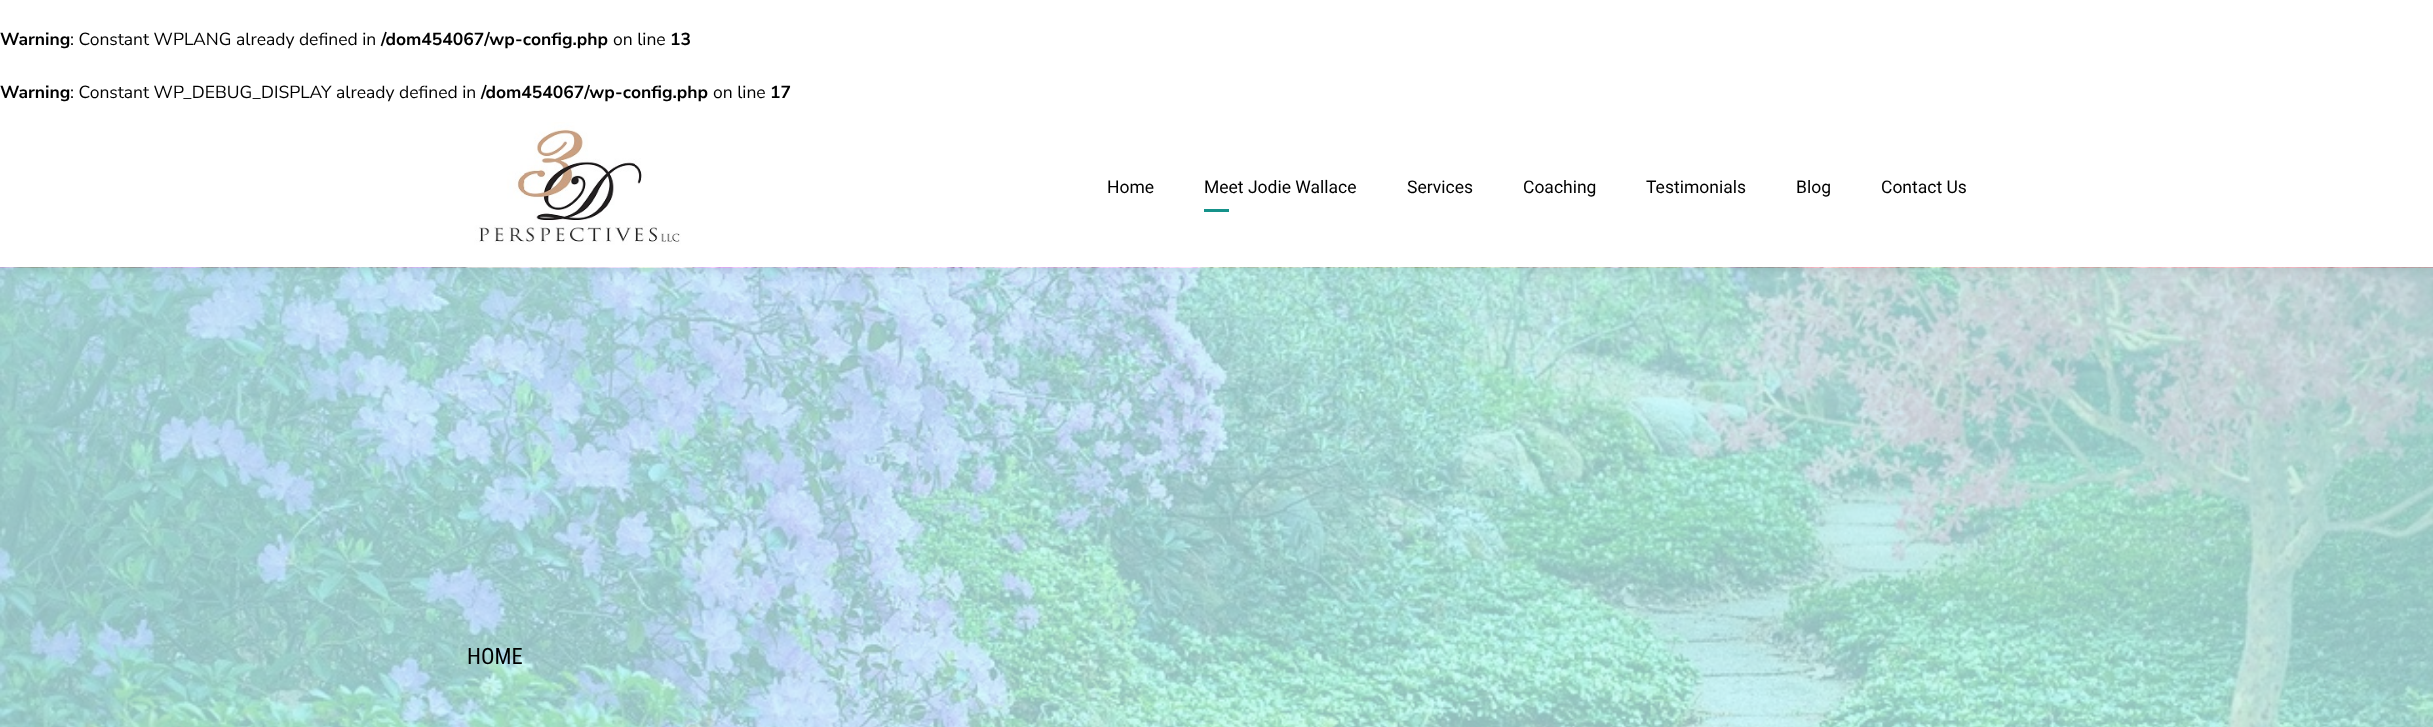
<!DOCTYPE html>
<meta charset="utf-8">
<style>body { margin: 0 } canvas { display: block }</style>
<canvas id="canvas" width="2433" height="727"></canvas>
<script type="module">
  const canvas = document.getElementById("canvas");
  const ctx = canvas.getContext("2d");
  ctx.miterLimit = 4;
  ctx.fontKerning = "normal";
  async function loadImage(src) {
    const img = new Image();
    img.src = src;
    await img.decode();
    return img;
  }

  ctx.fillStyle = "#ffffff";
  ctx.fillRect(0, 0, 2433, 727);
  ctx.font = "bold 17.5px Nunito Sans";
  ctx.fillStyle = "#000000";
  ctx.fillText("Warning", 0, 45);
  ctx.font = "17.5px Nunito Sans";
  ctx.fillText(": Constant WPLANG already defined in", 70, 45);
  ctx.font = "bold 17.5px Nunito Sans";
  ctx.fillText("/dom454067/wp-config.php", 381, 45);
  ctx.font = "17.5px Nunito Sans";
  ctx.fillText("on line", 613, 45);
  ctx.font = "bold 17.5px Nunito Sans";
  ctx.fillText("13", 670, 45);
  ctx.fillText("Warning", 0, 98);
  ctx.font = "17.5px Nunito Sans";
  ctx.fillText(": Constant WP_DEBUG_DISPLAY already defined in", 70, 98);
  ctx.font = "bold 17.5px Nunito Sans";
  ctx.fillText("/dom454067/wp-config.php", 481, 98);
  ctx.font = "17.5px Nunito Sans";
  ctx.fillText("on line", 713, 98);
  ctx.font = "bold 17.5px Nunito Sans";
  ctx.fillText("17", 770, 98);
  ctx.drawImage(await loadImage("img2.png"), 0, 267, 2433, 460);
  ctx.save();
  ctx.beginPath();
  ctx.rect(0, 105, 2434, 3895);
  ctx.clip();
  ctx.beginPath();
  ctx.moveTo(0, 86);
  ctx.lineTo(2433, 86);
  ctx.lineTo(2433, 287);
  ctx.lineTo(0, 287);
  ctx.closePath();
  ctx.moveTo(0, 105);
  ctx.lineTo(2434, 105);
  ctx.lineTo(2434, 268);
  ctx.lineTo(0, 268);
  ctx.closePath();
  ctx.clip("evenodd");
  ctx.fillStyle = "rgba(0, 0, 0, 0.1)";
  ctx.filter = "blur(6px)";
  ctx.beginPath();
  ctx.rect(0, 105, 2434, 163);
  ctx.fill();
  ctx.filter = "none";
  ctx.restore();
  ctx.drawImage(await loadImage("img1.png"), 467, 122, 226, 146);
  ctx.font = "17.5px Roboto";
  ctx.fillText("Home", 1107, 193);
  ctx.fillText("Meet Jodie Wallace", 1204, 193);
  ctx.fillStyle = "#15928a";
  ctx.fillRect(1204, 209, 25, 3);
  ctx.fillStyle = "#000000";
  ctx.fillText("Services", 1407, 193);
  ctx.fillText("Coaching", 1523, 193);
  ctx.fillText("Testimonials", 1646, 193);
  ctx.fillText("Blog", 1796, 193);
  ctx.fillText("Contact Us", 1881, 193);
  ctx.font = "22.5px Roboto Condensed";
  ctx.fillText("HOME", 467, 664);
</script>
